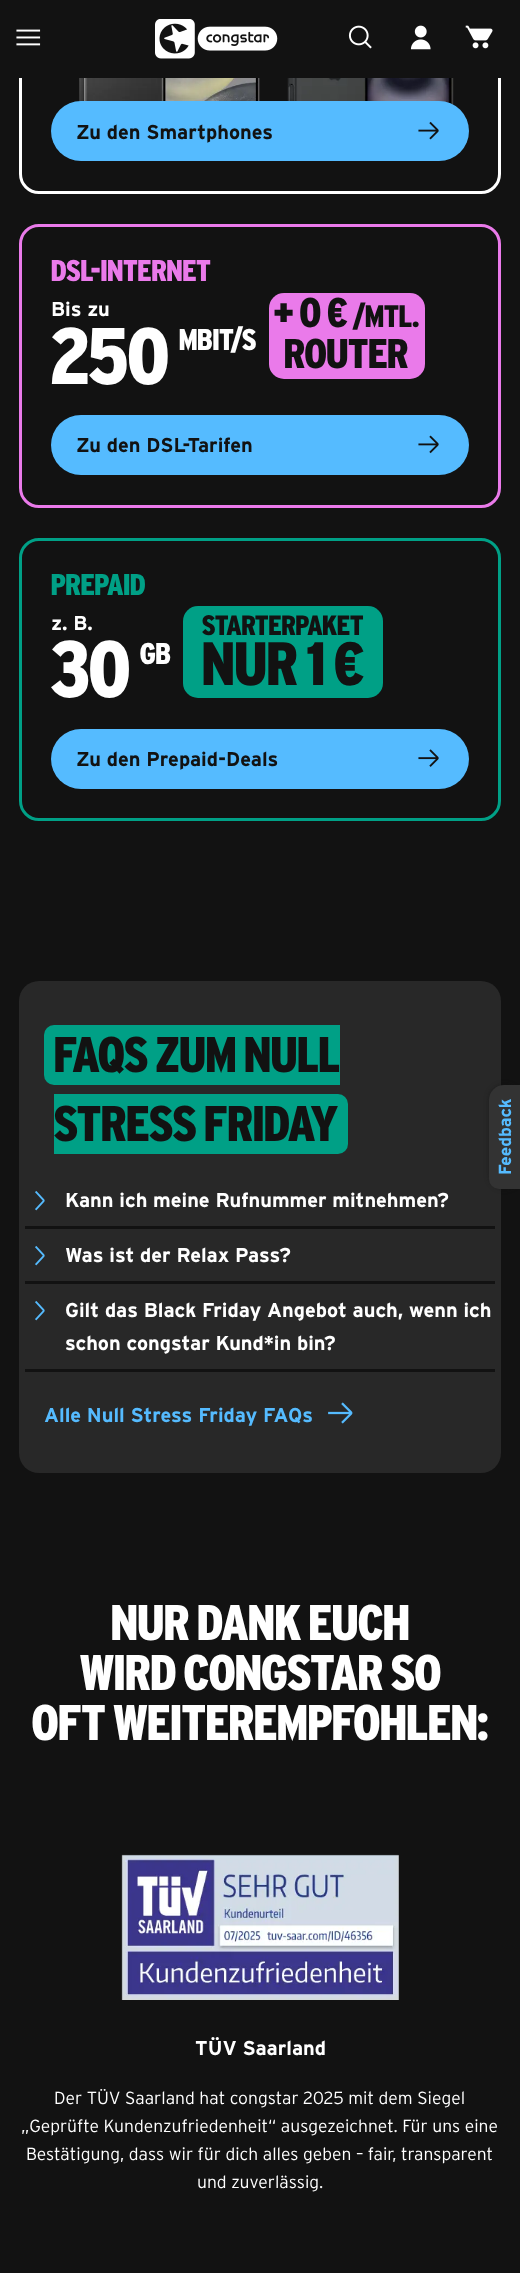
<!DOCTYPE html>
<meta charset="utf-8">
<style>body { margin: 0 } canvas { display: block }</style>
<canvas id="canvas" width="520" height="2273"></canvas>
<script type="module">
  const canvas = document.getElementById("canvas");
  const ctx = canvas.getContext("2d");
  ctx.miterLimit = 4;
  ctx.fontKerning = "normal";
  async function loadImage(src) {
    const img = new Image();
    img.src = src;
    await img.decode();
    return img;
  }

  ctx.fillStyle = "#121212";
  ctx.fillRect(0, 0, 520, 2273);
  ctx.beginPath();
  ctx.roundRect(20.5, -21.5, 479, 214, 18.5);
  ctx.strokeStyle = "#ffffff";
  ctx.lineWidth = 3;
  ctx.stroke();
  ctx.fillRect(19, 0, 482, 78);
  ctx.drawImage(await loadImage("img1.png"), 16, 29, 25, 17);
  ctx.drawImage(await loadImage("img2.png"), 155, 19, 123, 40);
  ctx.drawImage(await loadImage("img3.png"), 348, 25, 24, 24);
  ctx.drawImage(await loadImage("img4.png"), 410, 25, 21, 25);
  ctx.drawImage(await loadImage("img5.png"), 465, 25, 28, 24);
  ctx.drawImage(await loadImage("img6.png"), 79, 78, 375, 27);
  ctx.fillStyle = "#55bbff";
  ctx.beginPath();
  ctx.roundRect(51, 101, 418, 60, 30);
  ctx.fill();
  ctx.font = "bold 20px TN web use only";
  ctx.fillStyle = "#121212";
  ctx.fillText("Zu den Smartphones", 76, 139);
  ctx.drawImage(await loadImage("img7.png"), 418, 121, 21, 19);
  ctx.beginPath();
  ctx.roundRect(20.5, 225.5, 479, 281, 18.5);
  ctx.strokeStyle = "#ea7aea";
  ctx.stroke();
  ctx.font = "900 30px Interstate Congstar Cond";
  ctx.fillStyle = "#ea7aea";
  ctx.fillText("DSL-Internet", 51, 281);
  ctx.font = "bold 20px TN web use only";
  ctx.fillStyle = "#ffffff";
  ctx.fillText("Bis zu", 51, 316);
  ctx.font = "900 80px Interstate Congstar Cond";
  ctx.fillText("250", 51, 384);
  ctx.font = "900 30px Interstate Congstar Cond";
  ctx.fillText("MBit/s", 179, 350);
  ctx.fillStyle = "#ea7aea";
  ctx.beginPath();
  ctx.roundRect(269, 293, 156, 86, 15);
  ctx.fill();
  ctx.font = "900 41.5px Interstate Congstar Cond";
  ctx.fillStyle = "#121212";
  ctx.fillText("+ 0 €", 274, 327);
  ctx.font = "900 31px Interstate Congstar Cond";
  ctx.fillText("/MTL.", 353, 327);
  ctx.font = "900 41.5px Interstate Congstar Cond";
  ctx.fillText("Router", 284, 368);
  ctx.fillStyle = "#55bbff";
  ctx.beginPath();
  ctx.roundRect(51, 415, 418, 60, 30);
  ctx.fill();
  ctx.font = "bold 20px TN web use only";
  ctx.fillStyle = "#121212";
  ctx.fillText("Zu den DSL-Tarifen", 76, 452);
  ctx.drawImage(await loadImage("img8.png"), 418, 435, 21, 19);
  ctx.beginPath();
  ctx.roundRect(20.5, 539.5, 479, 280, 18.5);
  ctx.strokeStyle = "#00a086";
  ctx.stroke();
  ctx.font = "900 30px Interstate Congstar Cond";
  ctx.fillStyle = "#00a086";
  ctx.fillText("Prepaid", 51, 595);
  ctx.font = "bold 20px TN web use only";
  ctx.fillStyle = "#ffffff";
  ctx.fillText("z. B.", 51, 630);
  ctx.font = "900 80px Interstate Congstar Cond";
  ctx.fillText("30", 51, 697);
  ctx.font = "900 30px Interstate Congstar Cond";
  ctx.fillText("GB", 140, 664);
  ctx.fillStyle = "#00a086";
  ctx.beginPath();
  ctx.roundRect(183, 606, 200, 92, 15);
  ctx.fill();
  ctx.font = "900 28px Interstate Congstar Cond";
  ctx.fillStyle = "#121212";
  ctx.fillText("Starterpaket", 202, 635);
  ctx.font = "900 61px Interstate Congstar Cond";
  ctx.fillText("nur 1 €", 202, 685);
  ctx.fillStyle = "#55bbff";
  ctx.beginPath();
  ctx.roundRect(51, 729, 418, 60, 30);
  ctx.fill();
  ctx.font = "bold 20px TN web use only";
  ctx.fillStyle = "#121212";
  ctx.fillText("Zu den Prepaid-Deals", 76, 766);
  ctx.drawImage(await loadImage("img9.png"), 418, 749, 21, 18);
  ctx.fillStyle = "#282828";
  ctx.beginPath();
  ctx.roundRect(19, 981, 482, 492, 20);
  ctx.fill();
  ctx.fillStyle = "#00a086";
  ctx.beginPath();
  ctx.roundRect(44, 1025, 296, 60, [10, 0, 0, 10]);
  ctx.fill();
  ctx.font = "900 50px Interstate Congstar Cond";
  ctx.fillStyle = "#121212";
  ctx.fillText("FAQs zum Null", 54, 1072);
  ctx.fillStyle = "#00a086";
  ctx.beginPath();
  ctx.roundRect(54, 1094, 294, 60, [0, 10, 10, 0]);
  ctx.fill();
  ctx.fillStyle = "#121212";
  ctx.fillText("Stress Friday", 54, 1141);
  ctx.drawImage(await loadImage("img10.png"), 35, 1191, 10, 20);
  ctx.font = "bold 20px TN web use only";
  ctx.fillStyle = "#ffffff";
  ctx.fillText("Kann ich meine Rufnummer mitnehmen?", 65, 1207);
  ctx.fillStyle = "#121212";
  ctx.fillRect(25, 1226, 470, 3);
  ctx.drawImage(await loadImage("img10.png"), 35, 1246, 10, 20);
  ctx.fillStyle = "#ffffff";
  ctx.fillText("Was ist der Relax Pass?", 65, 1262);
  ctx.fillStyle = "#121212";
  ctx.fillRect(25, 1281, 470, 3);
  ctx.drawImage(await loadImage("img10.png"), 35, 1301, 10, 20);
  ctx.fillStyle = "#ffffff";
  ctx.fillText("Gilt das Black Friday Angebot auch, wenn ich", 65, 1317);
  ctx.fillText("schon congstar Kund*in bin?", 65, 1350);
  ctx.fillStyle = "#121212";
  ctx.fillRect(25, 1369, 470, 3);
  ctx.fillStyle = "#55bbff";
  ctx.fillText("Alle Null Stress Friday FAQs", 44, 1422);
  ctx.drawImage(await loadImage("img11.png"), 328, 1402, 25, 22);
  ctx.font = "900 50px Interstate Congstar Cond";
  ctx.fillStyle = "#ffffff";
  ctx.fillText("Nur dank euch", 111, 1640);
  ctx.fillText("wird congstar so", 80, 1690);
  ctx.fillText("oft weiterempfohlen:", 32, 1740);
  ctx.drawImage(await loadImage("img12.png"), 121, 1854, 278, 146);
  ctx.font = "bold 20px TN web use only";
  ctx.fillText("TÜV Saarland", 195, 2055);
  ctx.font = "300 17.5px TN web use only";
  ctx.fillText("Der TÜV Saarland hat congstar 2025 mit dem Siegel", 54, 2104);
  ctx.fillText("„Geprüfte Kundenzufriedenheit“ ausgezeichnet. Für uns eine", 21, 2132);
  ctx.fillText("Bestätigung, dass wir für dich alles geben – fair, transparent", 26, 2160);
  ctx.fillText("und zuverlässig.", 197, 2188);
  ctx.fillStyle = "rgba(18, 18, 18, 0.5)";
  ctx.filter = "blur(2.5px)";
  ctx.beginPath();
  ctx.roundRect(489, 1085, 31, 104, 15);
  ctx.fill();
  ctx.filter = "none";
  ctx.fillStyle = "#333333";
  ctx.beginPath();
  ctx.roundRect(489, 1085, 31, 104, [15, 0, 0, 10]);
  ctx.fill();
  ctx.font = "bold 17.5px TN web use only";
  ctx.fillStyle = "#55bbff";
  ctx.save();
  ctx.translate(511, 1175);
  ctx.rotate(-90 * Math.PI / 180);
  ctx.fillText("Feedback", 0, 0);
  ctx.restore();
</script>
